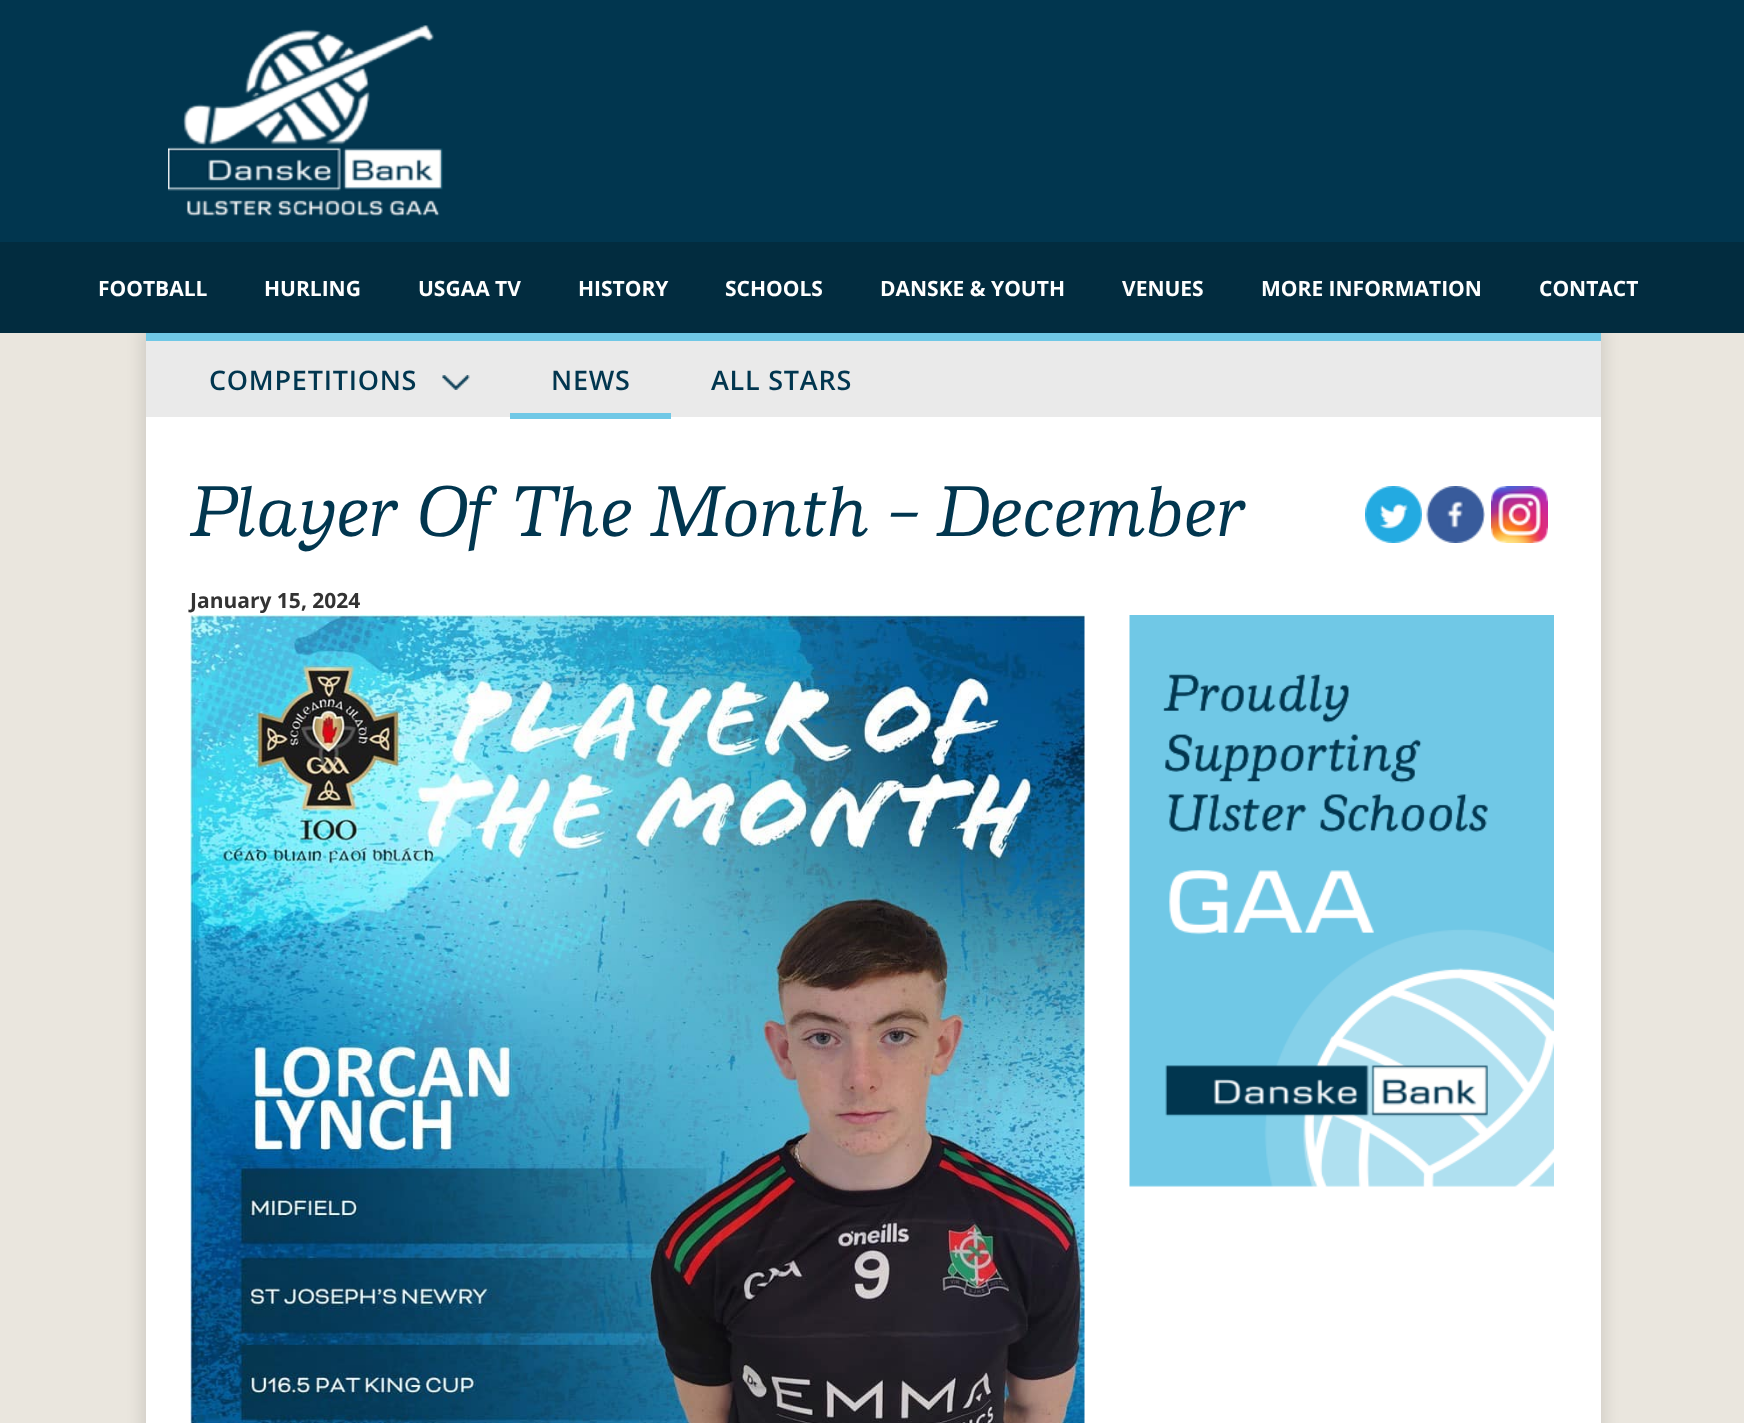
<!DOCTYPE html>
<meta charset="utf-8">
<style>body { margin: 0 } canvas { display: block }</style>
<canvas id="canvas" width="1744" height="1423"></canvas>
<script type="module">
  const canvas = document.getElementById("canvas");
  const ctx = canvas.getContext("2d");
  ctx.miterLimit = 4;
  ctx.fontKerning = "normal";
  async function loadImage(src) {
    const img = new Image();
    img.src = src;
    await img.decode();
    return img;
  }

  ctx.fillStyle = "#eae6de";
  ctx.fillRect(0, 0, 1744, 1423);
  ctx.fillStyle = "#01364f";
  ctx.fillRect(0, 0, 1744, 242);
  ctx.drawImage(await loadImage("img1.png"), 168, 25, 275, 191);
  ctx.fillStyle = "rgba(0, 0, 0, 0.1)";
  ctx.filter = "blur(7.5px)";
  ctx.beginPath();
  ctx.rect(141, 329, 1464, 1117);
  ctx.fill();
  ctx.filter = "none";
  ctx.fillStyle = "#022c3f";
  ctx.fillRect(0, 242, 1744, 91);
  ctx.font = "bold 21px Open Sans";
  ctx.fillStyle = "#ffffff";
  ctx.fillText("FOOTBALL", 98, 296);
  ctx.fillText("HURLING", 264, 296);
  ctx.fillText("USGAA TV", 418, 296);
  ctx.fillText("HISTORY", 578, 296);
  ctx.fillText("SCHOOLS", 725, 296);
  ctx.fillText("DANSKE & YOUTH", 880, 296);
  ctx.fillText("VENUES", 1122, 296);
  ctx.fillText("MORE INFORMATION", 1261, 296);
  ctx.fillText("CONTACT", 1539, 296);
  ctx.fillRect(146, 417, 1455, 1006);
  ctx.fillStyle = "#eaeaea";
  ctx.fillRect(146, 341, 1455, 76);
  ctx.fillStyle = "#70c8e6";
  ctx.fillRect(146, 333, 1455, 8);
  ctx.letterSpacing = "0.75px";
  ctx.font = "600 27px Open Sans";
  ctx.fillStyle = "#01364f";
  ctx.fillText("COMPETITIONS", 209, 390);
  ctx.drawImage(await loadImage("img2.png"), 442, 375, 28, 15);
  ctx.fillStyle = "#70c8e6";
  ctx.fillRect(510, 413, 161, 6);
  ctx.fillStyle = "#01364f";
  ctx.fillText("NEWS", 551, 390);
  ctx.fillText("ALL STARS", 711, 390);
  ctx.letterSpacing = "0px";
  ctx.font = "italic 500 75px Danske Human";
  ctx.fillText("Player Of The Month – December", 190, 536);
  ctx.font = "bold 21px Open Sans";
  ctx.fillStyle = "#333333";
  ctx.fillText("January 15, 2024", 190, 608);
  ctx.drawImage(await loadImage("img3.png"), 1365, 486, 57, 57);
  ctx.drawImage(await loadImage("img4.png"), 1426, 486, 59, 57);
  ctx.drawImage(await loadImage("img5.png"), 1491, 486, 57, 57);
  ctx.drawImage(await loadImage("img6.png"), 190, 615, 895, 808);
  ctx.drawImage(await loadImage("img7.png"), 1129, 615, 425, 572);
</script>
